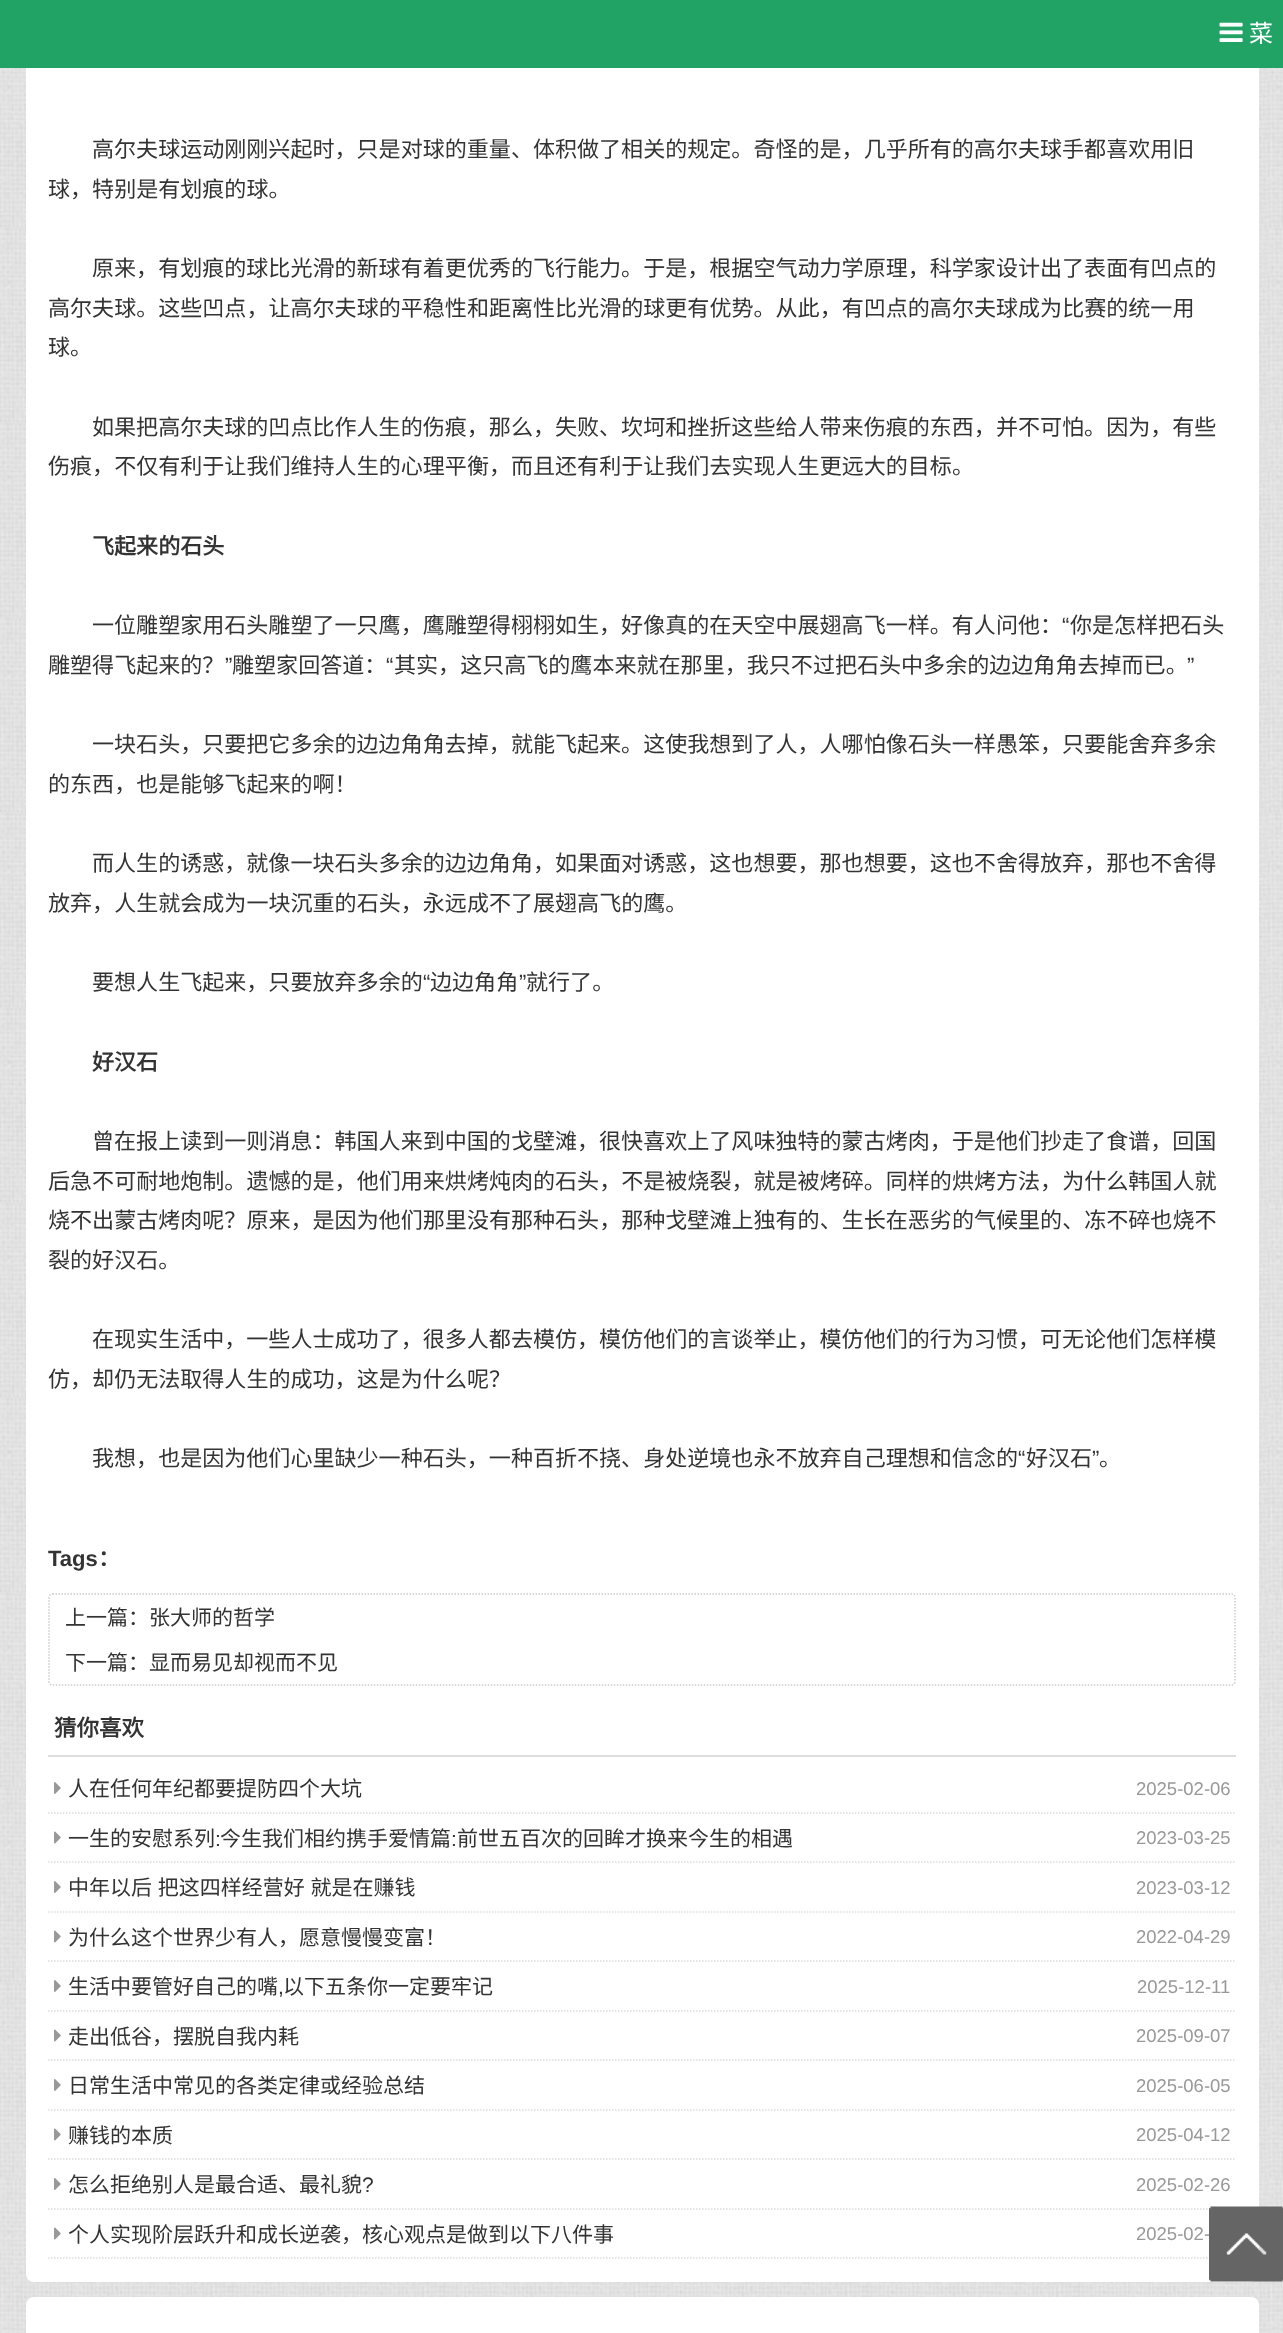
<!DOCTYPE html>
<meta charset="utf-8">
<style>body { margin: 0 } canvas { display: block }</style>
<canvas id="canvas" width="1283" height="2333"></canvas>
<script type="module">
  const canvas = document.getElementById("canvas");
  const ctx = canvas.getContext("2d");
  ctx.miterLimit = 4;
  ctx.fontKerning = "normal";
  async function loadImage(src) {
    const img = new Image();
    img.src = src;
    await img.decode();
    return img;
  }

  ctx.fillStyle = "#ffffff";
  ctx.fillRect(0, 0, 1283, 2333);
  ctx.drawImage(await loadImage("img1.png"), 0, 68, 1283, 2265);
  ctx.beginPath();
  ctx.roundRect(26, -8, 1233, 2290, 8);
  ctx.fill();
  ctx.fillStyle = "#21a366";
  ctx.fillRect(0, 0, 1283, 68);
  ctx.drawImage(await loadImage("img2.png"), 1219, 22, 24, 20);
  ctx.font = "24px Noto Sans CJK SC";
  ctx.fillStyle = "#ffffff";
  ctx.fillText("菜", 1249, 42);
  ctx.font = "22.05px Noto Sans CJK SC";
  ctx.fillStyle = "#333333";
  ctx.fillText("高尔夫球运动刚刚兴起时，只是对球的重量、体积做了相关的规定。奇怪的是，几乎所有的高尔夫球手都喜欢用旧", 92, 157);
  ctx.fillText("球，特别是有划痕的球。", 48, 197);
  ctx.fillText("原来，有划痕的球比光滑的新球有着更优秀的飞行能力。于是，根据空气动力学原理，科学家设计出了表面有凹点的", 92, 276);
  ctx.fillText("高尔夫球。这些凹点，让高尔夫球的平稳性和距离性比光滑的球更有优势。从此，有凹点的高尔夫球成为比赛的统一用", 48, 316);
  ctx.fillText("球。", 48, 355);
  ctx.fillText("如果把高尔夫球的凹点比作人生的伤痕，那么，失败、坎坷和挫折这些给人带来伤痕的东西，并不可怕。因为，有些", 92, 435);
  ctx.fillText("伤痕，不仅有利于让我们维持人生的心理平衡，而且还有利于让我们去实现人生更远大的目标。", 48, 474);
  ctx.font = "bold 22.05px Noto Sans CJK SC";
  ctx.fillText("飞起来的石头", 92, 554);
  ctx.font = "22.05px Noto Sans CJK SC";
  ctx.fillText("一位雕塑家用石头雕塑了一只鹰，鹰雕塑得栩栩如生，好像真的在天空中展翅高飞一样。有人问他：", 92, 633);
  ctx.font = "22.05px Liberation Sans";
  ctx.fillText("“", 1062, 633);
  ctx.font = "22.05px Noto Sans CJK SC";
  ctx.fillText("你是怎样把石头", 1070, 633);
  ctx.fillText("雕塑得飞起来的？", 48, 673);
  ctx.font = "22.05px Liberation Sans";
  ctx.fillText("”", 225, 673);
  ctx.font = "22.05px Noto Sans CJK SC";
  ctx.fillText("雕塑家回答道：", 232, 673);
  ctx.font = "22.05px Liberation Sans";
  ctx.fillText("“", 386, 673);
  ctx.font = "22.05px Noto Sans CJK SC";
  ctx.fillText("其实，这只高飞的鹰本来就在那里，我只不过把石头中多余的边边角角去掉而已。", 394, 673);
  ctx.font = "22.05px Liberation Sans";
  ctx.fillText("”", 1187, 673);
  ctx.font = "22.05px Noto Sans CJK SC";
  ctx.fillText("一块石头，只要把它多余的边边角角去掉，就能飞起来。这使我想到了人，人哪怕像石头一样愚笨，只要能舍弃多余", 92, 752);
  ctx.fillText("的东西，也是能够飞起来的啊！", 48, 792);
  ctx.fillText("而人生的诱惑，就像一块石头多余的边边角角，如果面对诱惑，这也想要，那也想要，这也不舍得放弃，那也不舍得", 92, 871);
  ctx.fillText("放弃，人生就会成为一块沉重的石头，永远成不了展翅高飞的鹰。", 48, 911);
  ctx.fillText("要想人生飞起来，只要放弃多余的", 92, 990);
  ctx.font = "22.05px Liberation Sans";
  ctx.fillText("“", 423, 990);
  ctx.font = "22.05px Noto Sans CJK SC";
  ctx.fillText("边边角角", 430, 990);
  ctx.font = "22.05px Liberation Sans";
  ctx.fillText("”", 519, 990);
  ctx.font = "22.05px Noto Sans CJK SC";
  ctx.fillText("就行了。", 526, 990);
  ctx.font = "bold 22.05px Noto Sans CJK SC";
  ctx.fillText("好汉石", 92, 1070);
  ctx.font = "22.05px Noto Sans CJK SC";
  ctx.fillText("曾在报上读到一则消息：韩国人来到中国的戈壁滩，很快喜欢上了风味独特的蒙古烤肉，于是他们抄走了食谱，回国", 92, 1149);
  ctx.fillText("后急不可耐地炮制。遗憾的是，他们用来烘烤炖肉的石头，不是被烧裂，就是被烤碎。同样的烘烤方法，为什么韩国人就", 48, 1189);
  ctx.fillText("烧不出蒙古烤肉呢？原来，是因为他们那里没有那种石头，那种戈壁滩上独有的、生长在恶劣的气候里的、冻不碎也烧不", 48, 1228);
  ctx.fillText("裂的好汉石。", 48, 1268);
  ctx.fillText("在现实生活中，一些人士成功了，很多人都去模仿，模仿他们的言谈举止，模仿他们的行为习惯，可无论他们怎样模", 92, 1347);
  ctx.fillText("仿，却仍无法取得人生的成功，这是为什么呢？", 48, 1387);
  ctx.fillText("我想，也是因为他们心里缺少一种石头，一种百折不挠、身处逆境也永不放弃自己理想和信念的", 92, 1466);
  ctx.font = "22.05px Liberation Sans";
  ctx.fillText("“", 1018, 1466);
  ctx.font = "22.05px Noto Sans CJK SC";
  ctx.fillText("好汉石", 1026, 1466);
  ctx.font = "22.05px Liberation Sans";
  ctx.fillText("”", 1092, 1466);
  ctx.font = "22.05px Noto Sans CJK SC";
  ctx.fillText("。", 1099, 1466);
  ctx.font = "bold 22.05px Liberation Sans";
  ctx.fillText("Tags", 48, 1566);
  ctx.font = "bold 22.05px Noto Sans CJK SC";
  ctx.fillText("：", 98, 1566);
  ctx.beginPath();
  ctx.moveTo(52.5, 1594);
  ctx.lineTo(1231.5, 1594);
  ctx.bezierCurveTo(1233.5, 1594, 1235, 1595.5, 1235, 1597.5);
  ctx.lineTo(1235, 1681.5);
  ctx.bezierCurveTo(1235, 1683.5, 1233.5, 1685, 1231.5, 1685);
  ctx.lineTo(52.5, 1685);
  ctx.bezierCurveTo(50.5, 1685, 49, 1683.5, 49, 1681.5);
  ctx.lineTo(49, 1597.5);
  ctx.bezierCurveTo(49, 1595.5, 50.5, 1594, 52.5, 1594);
  ctx.closePath();
  ctx.strokeStyle = "#cccccc";
  ctx.lineWidth = 1.5;
  ctx.setLineDash([1.5, 1.5]);
  ctx.stroke();
  ctx.font = "21px Noto Sans CJK SC";
  ctx.fillText("上一篇：张大师的哲学", 65, 1625);
  ctx.fillText("下一篇：显而易见却视而不见", 65, 1670);
  ctx.fillStyle = "#dddddd";
  ctx.fillRect(48, 1755, 1188, 2);
  ctx.font = "bold 22.5px Noto Sans CJK SC";
  ctx.fillStyle = "#333333";
  ctx.fillText("猜你喜欢", 54, 1736);
  ctx.beginPath();
  ctx.moveTo(48, 1813);
  ctx.lineTo(1236, 1813);
  ctx.strokeStyle = "#dddddd";
  ctx.stroke();
  ctx.drawImage(await loadImage("img3.png"), 54, 1782, 7, 12);
  ctx.font = "21px Noto Sans CJK SC";
  ctx.fillText("人在任何年纪都要提防四个大坑", 68, 1796);
  ctx.font = "18.5px Liberation Sans";
  ctx.fillStyle = "#999999";
  ctx.fillText("2025-02-06", 1136, 1795);
  ctx.beginPath();
  ctx.moveTo(48, 1862);
  ctx.lineTo(1236, 1862);
  ctx.stroke();
  ctx.drawImage(await loadImage("img4.png"), 54, 1831, 7, 13);
  ctx.font = "21px Noto Sans CJK SC";
  ctx.fillStyle = "#333333";
  ctx.fillText("一生的安慰系列", 68, 1846);
  ctx.font = "21px Liberation Sans";
  ctx.fillText(":", 215, 1846);
  ctx.font = "21px Noto Sans CJK SC";
  ctx.fillText("今生我们相约携手爱情篇", 220, 1846);
  ctx.font = "21px Liberation Sans";
  ctx.fillText(":", 451, 1846);
  ctx.font = "21px Noto Sans CJK SC";
  ctx.fillText("前世五百次的回眸才换来今生的相遇", 457, 1846);
  ctx.font = "18.5px Liberation Sans";
  ctx.fillStyle = "#999999";
  ctx.fillText("2023-03-25", 1136, 1844);
  ctx.beginPath();
  ctx.moveTo(48, 1912);
  ctx.lineTo(1236, 1912);
  ctx.stroke();
  ctx.drawImage(await loadImage("img3.png"), 54, 1881, 7, 12);
  ctx.wordSpacing = "1px";
  ctx.font = "21px Noto Sans CJK SC";
  ctx.fillStyle = "#333333";
  ctx.fillText("中年以后 把这四样经营好 就是在赚钱", 68, 1895);
  ctx.wordSpacing = "0px";
  ctx.font = "18.5px Liberation Sans";
  ctx.fillStyle = "#999999";
  ctx.fillText("2023-03-12", 1136, 1894);
  ctx.beginPath();
  ctx.moveTo(48, 1961);
  ctx.lineTo(1236, 1961);
  ctx.stroke();
  ctx.drawImage(await loadImage("img4.png"), 54, 1930, 7, 13);
  ctx.font = "21px Noto Sans CJK SC";
  ctx.fillStyle = "#333333";
  ctx.fillText("为什么这个世界少有人，愿意慢慢变富！", 68, 1945);
  ctx.font = "18.5px Liberation Sans";
  ctx.fillStyle = "#999999";
  ctx.fillText("2022-04-29", 1136, 1943);
  ctx.beginPath();
  ctx.moveTo(48, 2011);
  ctx.lineTo(1236, 2011);
  ctx.stroke();
  ctx.drawImage(await loadImage("img3.png"), 54, 1980, 7, 12);
  ctx.font = "21px Noto Sans CJK SC";
  ctx.fillStyle = "#333333";
  ctx.fillText("生活中要管好自己的嘴", 68, 1994);
  ctx.font = "21px Liberation Sans";
  ctx.fillText(",", 278, 1994);
  ctx.font = "21px Noto Sans CJK SC";
  ctx.fillText("以下五条你一定要牢记", 283, 1994);
  ctx.font = "18.5px Liberation Sans";
  ctx.fillStyle = "#999999";
  ctx.fillText("2025-12-11", 1137, 1993);
  ctx.beginPath();
  ctx.moveTo(48, 2060);
  ctx.lineTo(1236, 2060);
  ctx.stroke();
  ctx.drawImage(await loadImage("img4.png"), 54, 2029, 7, 13);
  ctx.font = "21px Noto Sans CJK SC";
  ctx.fillStyle = "#333333";
  ctx.fillText("走出低谷，摆脱自我内耗", 68, 2044);
  ctx.font = "18.5px Liberation Sans";
  ctx.fillStyle = "#999999";
  ctx.fillText("2025-09-07", 1136, 2042);
  ctx.beginPath();
  ctx.moveTo(48, 2110);
  ctx.lineTo(1236, 2110);
  ctx.stroke();
  ctx.drawImage(await loadImage("img3.png"), 54, 2079, 7, 12);
  ctx.font = "21px Noto Sans CJK SC";
  ctx.fillStyle = "#333333";
  ctx.fillText("日常生活中常见的各类定律或经验总结", 68, 2093);
  ctx.font = "18.5px Liberation Sans";
  ctx.fillStyle = "#999999";
  ctx.fillText("2025-06-05", 1136, 2092);
  ctx.beginPath();
  ctx.moveTo(48, 2159);
  ctx.lineTo(1236, 2159);
  ctx.stroke();
  ctx.drawImage(await loadImage("img4.png"), 54, 2128, 7, 13);
  ctx.font = "21px Noto Sans CJK SC";
  ctx.fillStyle = "#333333";
  ctx.fillText("赚钱的本质", 68, 2143);
  ctx.font = "18.5px Liberation Sans";
  ctx.fillStyle = "#999999";
  ctx.fillText("2025-04-12", 1136, 2141);
  ctx.beginPath();
  ctx.moveTo(48, 2209);
  ctx.lineTo(1236, 2209);
  ctx.stroke();
  ctx.drawImage(await loadImage("img3.png"), 54, 2178, 7, 12);
  ctx.font = "21px Noto Sans CJK SC";
  ctx.fillStyle = "#333333";
  ctx.fillText("怎么拒绝别人是最合适、最礼貌", 68, 2192);
  ctx.font = "21px Liberation Sans";
  ctx.fillText("?", 362, 2192);
  ctx.font = "18.5px Liberation Sans";
  ctx.fillStyle = "#999999";
  ctx.fillText("2025-02-26", 1136, 2191);
  ctx.beginPath();
  ctx.moveTo(48, 2258);
  ctx.lineTo(1236, 2258);
  ctx.stroke();
  ctx.drawImage(await loadImage("img4.png"), 54, 2227, 7, 13);
  ctx.font = "21px Noto Sans CJK SC";
  ctx.fillStyle = "#333333";
  ctx.fillText("个人实现阶层跃升和成长逆袭，核心观点是做到以下八件事", 68, 2242);
  ctx.font = "18.5px Liberation Sans";
  ctx.fillStyle = "#999999";
  ctx.fillText("2025-02-", 1136, 2240);
  ctx.fillStyle = "#ffffff";
  ctx.beginPath();
  ctx.roundRect(26, 2297, 1233, 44, 8);
  ctx.fill();
  ctx.drawImage(await loadImage("img5.png"), 1209, 2206, 74, 76);
</script>
